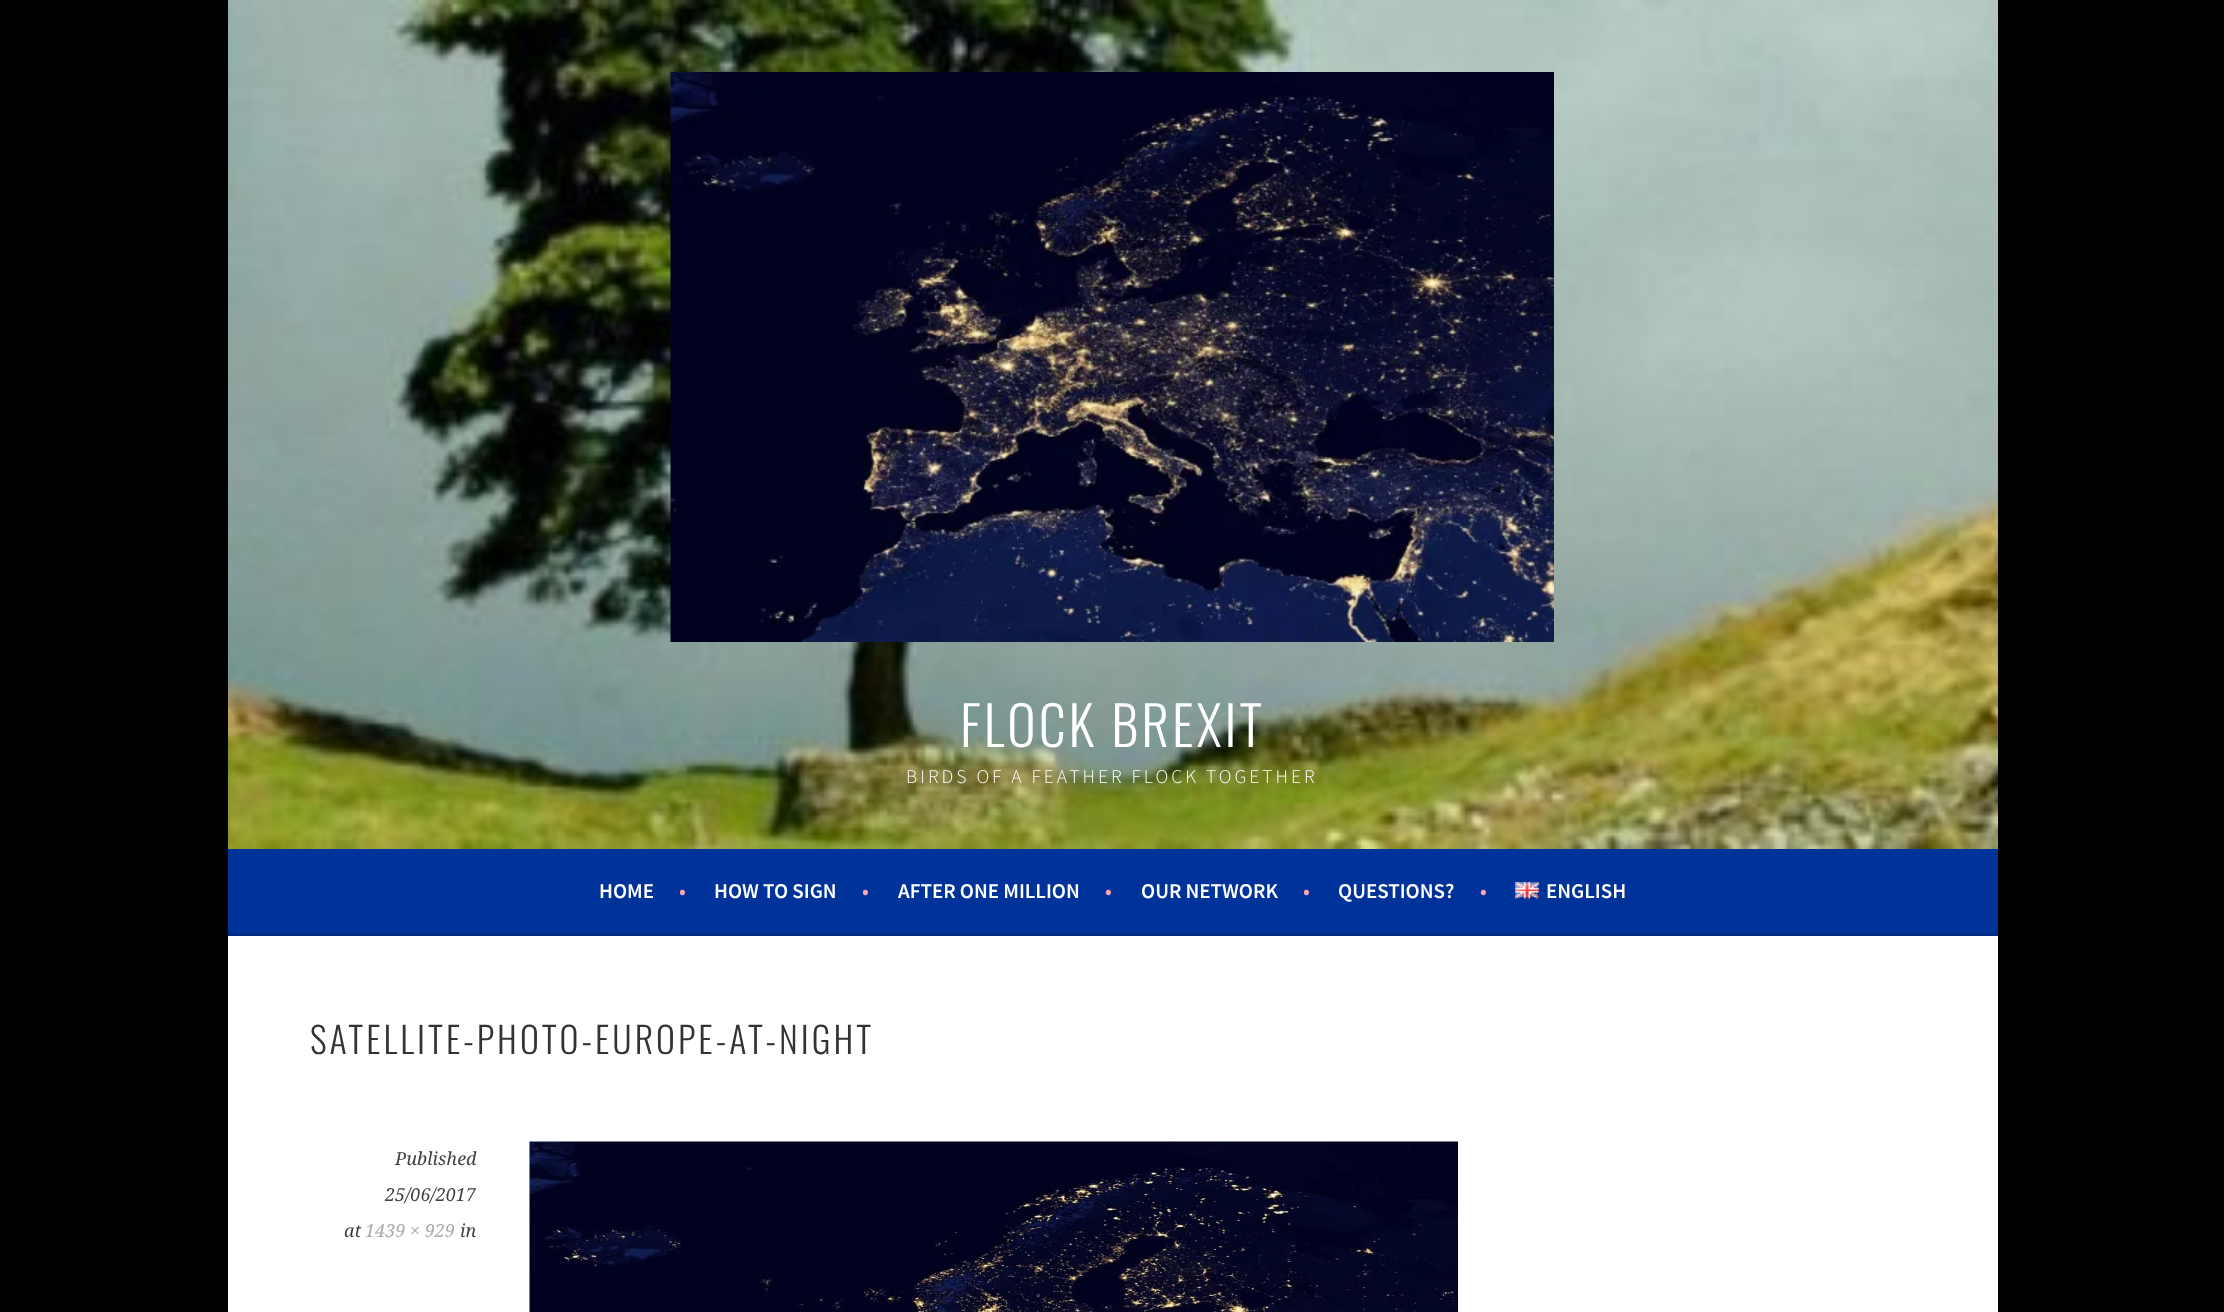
<!DOCTYPE html>
<meta charset="utf-8">
<style>body { margin: 0 } canvas { display: block }</style>
<canvas id="canvas" width="2224" height="1312"></canvas>
<script type="module">
  const canvas = document.getElementById("canvas");
  const ctx = canvas.getContext("2d");
  ctx.miterLimit = 4;
  ctx.fontKerning = "normal";
  async function loadImage(src) {
    const img = new Image();
    img.src = src;
    await img.decode();
    return img;
  }

  ctx.fillStyle = "#000000";
  ctx.fillRect(0, 0, 2224, 1312);
  ctx.drawImage(await loadImage("img1.png"), 228, 0, 1770, 849);
  ctx.drawImage(await loadImage("img2.png"), 670, 72, 884, 570);
  ctx.letterSpacing = "3px";
  ctx.font = "300 54px Oswald";
  ctx.fillStyle = "#ffffff";
  ctx.fillText("FLOCK BREXIT", 960, 747);
  ctx.font = "300 19.5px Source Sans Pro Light";
  ctx.fillText("BIRDS OF A FEATHER FLOCK TOGETHER", 906, 783);
  ctx.fillStyle = "#003399";
  ctx.fillRect(228, 849, 1770, 84);
  ctx.fillStyle = "#002b82";
  ctx.fillRect(228, 933, 1770, 3);
  ctx.letterSpacing = "0px";
  ctx.font = "600 21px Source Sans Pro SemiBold";
  ctx.fillStyle = "#ffffff";
  ctx.fillText("HOME", 599, 898);
  ctx.fillStyle = "#ffa4ad";
  ctx.fillText("•", 679, 898);
  ctx.fillStyle = "#ffffff";
  ctx.fillText("HOW TO SIGN", 714, 898);
  ctx.fillStyle = "#ffa4ad";
  ctx.fillText("•", 862, 898);
  ctx.fillStyle = "#ffffff";
  ctx.fillText("AFTER ONE MILLION", 898, 898);
  ctx.fillStyle = "#ffa4ad";
  ctx.fillText("•", 1105, 898);
  ctx.fillStyle = "#ffffff";
  ctx.fillText("OUR NETWORK", 1141, 898);
  ctx.fillStyle = "#ffa4ad";
  ctx.fillText("•", 1303, 898);
  ctx.fillStyle = "#ffffff";
  ctx.fillText("QUESTIONS?", 1338, 898);
  ctx.fillStyle = "#ffa4ad";
  ctx.fillText("•", 1480, 898);
  ctx.drawImage(await loadImage("img3.png"), 1515, 882, 24, 17);
  ctx.fillStyle = "#ffffff";
  ctx.fillText("ENGLISH", 1546, 898);
  ctx.fillRect(228, 936, 1770, 376);
  ctx.letterSpacing = "3px";
  ctx.font = "300 36px Oswald";
  ctx.fillStyle = "#333333";
  ctx.fillText("SATELLITE-PHOTO-EUROPE-AT-NIGHT", 310, 1054);
  ctx.letterSpacing = "0px";
  ctx.font = "italic 18px Droid Serif";
  ctx.fillStyle = "#404040";
  ctx.fillText("Published", 395, 1165);
  ctx.fillText("25/06/2017", 385, 1201);
  ctx.fillText("at", 344, 1237);
  ctx.fillStyle = "#aaaaaa";
  ctx.fillText("1439 × 929", 365, 1237);
  ctx.fillStyle = "#404040";
  ctx.fillText("in", 460, 1237);
  ctx.drawImage(await loadImage("img4.png"), 529, 1141, 929, 171);
</script>
